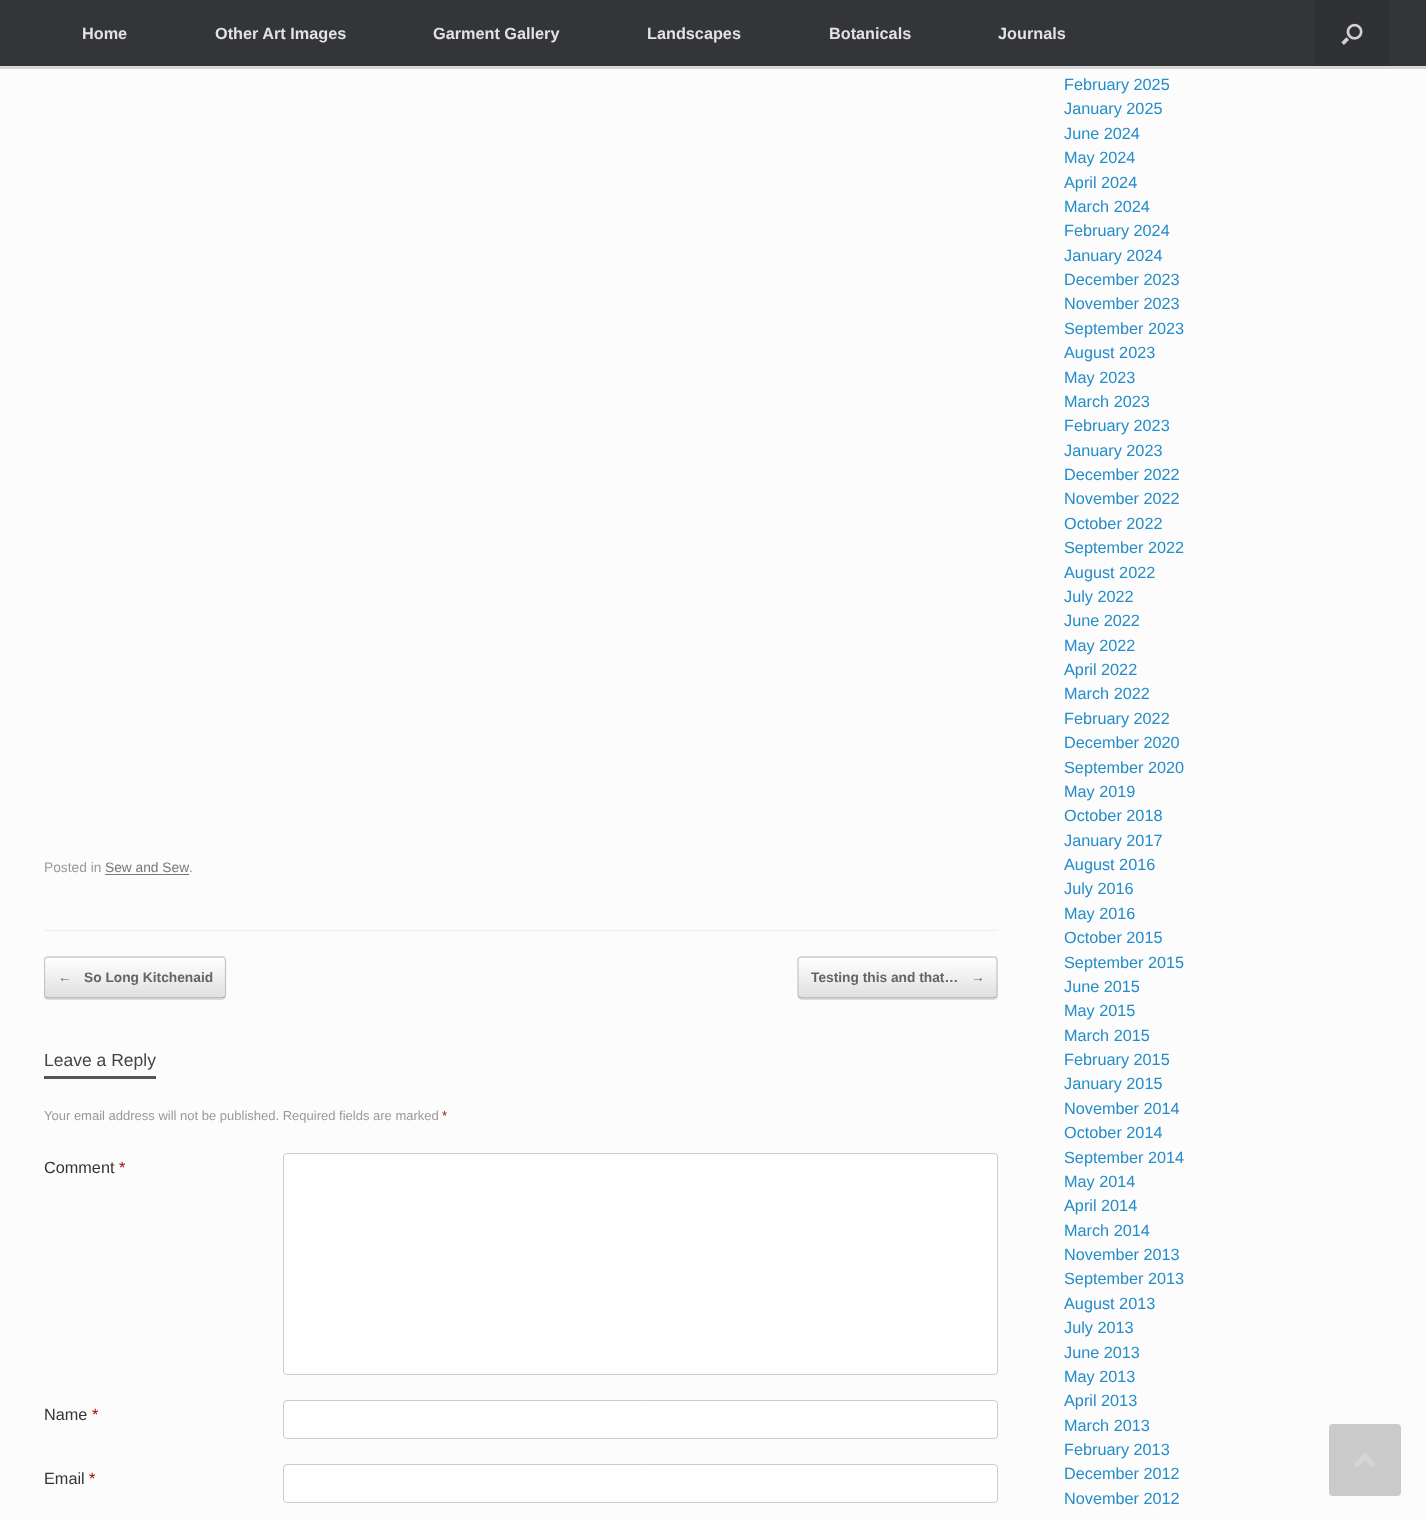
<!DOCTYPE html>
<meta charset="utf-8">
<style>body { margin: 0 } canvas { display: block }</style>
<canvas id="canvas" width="1426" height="1521"></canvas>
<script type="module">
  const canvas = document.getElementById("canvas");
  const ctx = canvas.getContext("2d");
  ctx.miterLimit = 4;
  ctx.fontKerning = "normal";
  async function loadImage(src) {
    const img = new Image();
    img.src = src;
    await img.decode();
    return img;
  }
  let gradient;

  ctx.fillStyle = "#fcfcfc";
  ctx.fillRect(0, 0, 1426, 1521);
  ctx.fillStyle = "rgba(0, 0, 0, 0.15)";
  ctx.filter = "blur(0.5px)";
  ctx.beginPath();
  ctx.rect(0, 3, 1426, 66);
  ctx.fill();
  ctx.filter = "none";
  ctx.fillStyle = "#343538";
  ctx.fillRect(0, 0, 1426, 66);
  ctx.font = "bold 16.25px Liberation Sans";
  ctx.fillStyle = "#e2e2e2";
  ctx.fillText("Home", 82, 39);
  ctx.fillText("Other Art Images", 215, 39);
  ctx.fillText("Garment Gallery", 433, 39);
  ctx.fillText("Landscapes", 647, 39);
  ctx.fillText("Botanicals", 829, 39);
  ctx.fillText("Journals", 998, 39);
  ctx.fillStyle = "#303134";
  ctx.fillRect(1315, 0, 74, 66);
  ctx.drawImage(await loadImage("img1.png"), 1341, 23, 22, 22);
  ctx.fillStyle = "#eeeeee";
  ctx.fillRect(44, 930, 954, 1);
  ctx.font = "13.75px Liberation Sans";
  ctx.fillStyle = "#999999";
  ctx.fillText("Posted in", 44, 872);
  ctx.fillStyle = "#777777";
  ctx.fillText("Sew and Sew", 105, 872);
  ctx.fillRect(105, 874, 84, 1);
  ctx.fillStyle = "#999999";
  ctx.fillText(".", 189, 872);
  ctx.fillStyle = "rgba(0, 0, 0, 0.12)";
  ctx.filter = "blur(0.5px)";
  ctx.beginPath();
  ctx.roundRect(44, 958, 182, 42, 4);
  ctx.fill();
  ctx.filter = "none";
  ctx.save();
  ctx.beginPath();
  ctx.roundRect(44, 956, 182, 43, 4);
  ctx.clip();
  gradient = ctx.createLinearGradient(45, 958, 45, 918);
  gradient.addColorStop(0, "#dfdfdf");
  gradient.addColorStop(1, "#ffffff");
  ctx.fillStyle = gradient;
  ctx.fillRect(44, 956, 182, 2);
  gradient = ctx.createLinearGradient(45, 998, 45, 958);
  gradient.addColorStop(0, "#dfdfdf");
  gradient.addColorStop(1, "#ffffff");
  ctx.fillStyle = gradient;
  ctx.fillRect(44, 958, 182, 40);
  gradient = ctx.createLinearGradient(45, 1038, 45, 998);
  gradient.addColorStop(0, "#dfdfdf");
  gradient.addColorStop(1, "#ffffff");
  ctx.fillStyle = gradient;
  ctx.fillRect(44, 998, 182, 1);
  ctx.restore();
  ctx.beginPath();
  ctx.moveTo(45.5, 958);
  ctx.lineTo(47.5, 957);
  ctx.lineTo(222.5, 957);
  ctx.lineTo(224.5, 958);
  ctx.strokeStyle = "#d2d2d2";
  ctx.lineWidth = 1.2;
  ctx.stroke();
  ctx.beginPath();
  ctx.moveTo(224.5, 958);
  ctx.bezierCurveTo(225.5, 958.5, 225.5, 959, 225.5, 960);
  ctx.lineTo(225.5, 995);
  ctx.bezierCurveTo(225.5, 996, 225.5, 996.5, 224.5, 997);
  ctx.strokeStyle = "#c3c3c3";
  ctx.stroke();
  ctx.beginPath();
  ctx.moveTo(224.5, 997);
  ctx.lineTo(222.5, 998);
  ctx.lineTo(47.5, 998);
  ctx.lineTo(45.5, 997);
  ctx.strokeStyle = "#9f9f9f";
  ctx.stroke();
  ctx.save();
  ctx.beginPath();
  ctx.rect(44, 956, 954, 43);
  ctx.clip();
  ctx.beginPath();
  ctx.moveTo(45.5, 997);
  ctx.bezierCurveTo(44.5, 996.5, 44.5, 996, 44.5, 995);
  ctx.lineTo(44.5, 960);
  ctx.bezierCurveTo(44.5, 959, 44.5, 958.5, 45.5, 958);
  ctx.strokeStyle = "#c3c3c3";
  ctx.stroke();
  ctx.restore();
  ctx.font = "bold 13.75px Liberation Sans";
  ctx.fillStyle = "#646464";
  ctx.fillText("←", 58, 982);
  ctx.fillText("So Long Kitchenaid", 84, 982);
  ctx.fillStyle = "rgba(0, 0, 0, 0.12)";
  ctx.filter = "blur(0.5px)";
  ctx.beginPath();
  ctx.roundRect(798, 958, 200, 42, 4);
  ctx.fill();
  ctx.filter = "none";
  ctx.save();
  ctx.beginPath();
  ctx.roundRect(798, 956, 200, 43, 4);
  ctx.clip();
  gradient = ctx.createLinearGradient(799, 958, 799, 918);
  gradient.addColorStop(0, "#dfdfdf");
  gradient.addColorStop(1, "#ffffff");
  ctx.fillStyle = gradient;
  ctx.fillRect(798, 956, 200, 2);
  gradient = ctx.createLinearGradient(799, 998, 799, 958);
  gradient.addColorStop(0, "#dfdfdf");
  gradient.addColorStop(1, "#ffffff");
  ctx.fillStyle = gradient;
  ctx.fillRect(798, 958, 200, 40);
  gradient = ctx.createLinearGradient(799, 1038, 799, 998);
  gradient.addColorStop(0, "#dfdfdf");
  gradient.addColorStop(1, "#ffffff");
  ctx.fillStyle = gradient;
  ctx.fillRect(798, 998, 200, 1);
  ctx.restore();
  ctx.beginPath();
  ctx.moveTo(799, 958);
  ctx.lineTo(801, 957);
  ctx.lineTo(994, 957);
  ctx.lineTo(996, 958);
  ctx.strokeStyle = "#d2d2d2";
  ctx.stroke();
  ctx.beginPath();
  ctx.moveTo(996, 958);
  ctx.bezierCurveTo(996.5, 958.5, 997, 959, 997, 960);
  ctx.lineTo(997, 995);
  ctx.bezierCurveTo(997, 996, 996.5, 996.5, 996, 997);
  ctx.strokeStyle = "#c3c3c3";
  ctx.stroke();
  ctx.beginPath();
  ctx.moveTo(996, 997);
  ctx.lineTo(994, 998);
  ctx.lineTo(801, 998);
  ctx.lineTo(799, 997);
  ctx.strokeStyle = "#9f9f9f";
  ctx.stroke();
  ctx.beginPath();
  ctx.moveTo(799, 997);
  ctx.bezierCurveTo(798.5, 996.5, 798, 996, 798, 995);
  ctx.lineTo(798, 960);
  ctx.bezierCurveTo(798, 959, 798.5, 958.5, 799, 958);
  ctx.strokeStyle = "#c3c3c3";
  ctx.stroke();
  ctx.fillStyle = "#646464";
  ctx.fillText("Testing this and that…", 811, 982);
  ctx.fillText("→", 971, 982);
  ctx.fillStyle = "#555555";
  ctx.fillRect(44, 1076, 112, 3);
  ctx.font = "17.5px Liberation Sans";
  ctx.fillStyle = "#444444";
  ctx.fillText("Leave a Reply", 44, 1066);
  ctx.font = "13px Liberation Sans";
  ctx.fillStyle = "#999999";
  ctx.fillText("Your email address will not be published. Required fields are marked", 44, 1120);
  ctx.fillStyle = "#a40802";
  ctx.fillText("*", 442, 1120);
  ctx.font = "16.25px Liberation Sans";
  ctx.fillStyle = "#333333";
  ctx.fillText("Comment", 44, 1173);
  ctx.fillStyle = "#a40802";
  ctx.fillText("*", 119, 1173);
  ctx.fillStyle = "#ffffff";
  ctx.beginPath();
  ctx.roundRect(283.5, 1153.5, 714, 221, 3.5);
  ctx.fill();
  ctx.strokeStyle = "#cccccc";
  ctx.lineWidth = 1;
  ctx.stroke();
  ctx.fillStyle = "#333333";
  ctx.fillText("Name", 44, 1420);
  ctx.fillStyle = "#a40802";
  ctx.fillText("*", 92, 1420);
  ctx.fillStyle = "#ffffff";
  ctx.beginPath();
  ctx.roundRect(283.5, 1400.5, 714, 38, 3.5);
  ctx.fill();
  ctx.stroke();
  ctx.fillStyle = "#333333";
  ctx.fillText("Email", 44, 1484);
  ctx.fillStyle = "#a40802";
  ctx.fillText("*", 89, 1484);
  ctx.fillStyle = "#ffffff";
  ctx.beginPath();
  ctx.roundRect(283.5, 1464.5, 714, 38, 3.5);
  ctx.fill();
  ctx.stroke();
  ctx.fillStyle = "#248cc8";
  ctx.fillText("February 2025", 1064, 90);
  ctx.fillText("January 2025", 1064, 114);
  ctx.fillText("June 2024", 1064, 139);
  ctx.fillText("May 2024", 1064, 163);
  ctx.fillText("April 2024", 1064, 188);
  ctx.fillText("March 2024", 1064, 212);
  ctx.fillText("February 2024", 1064, 236);
  ctx.fillText("January 2024", 1064, 261);
  ctx.fillText("December 2023", 1064, 285);
  ctx.fillText("November 2023", 1064, 309);
  ctx.fillText("September 2023", 1064, 334);
  ctx.fillText("August 2023", 1064, 358);
  ctx.fillText("May 2023", 1064, 383);
  ctx.fillText("March 2023", 1064, 407);
  ctx.fillText("February 2023", 1064, 431);
  ctx.fillText("January 2023", 1064, 456);
  ctx.fillText("December 2022", 1064, 480);
  ctx.fillText("November 2022", 1064, 504);
  ctx.fillText("October 2022", 1064, 529);
  ctx.fillText("September 2022", 1064, 553);
  ctx.fillText("August 2022", 1064, 578);
  ctx.fillText("July 2022", 1064, 602);
  ctx.fillText("June 2022", 1064, 626);
  ctx.fillText("May 2022", 1064, 651);
  ctx.fillText("April 2022", 1064, 675);
  ctx.fillText("March 2022", 1064, 699);
  ctx.fillText("February 2022", 1064, 724);
  ctx.fillText("December 2020", 1064, 748);
  ctx.fillText("September 2020", 1064, 773);
  ctx.fillText("May 2019", 1064, 797);
  ctx.fillText("October 2018", 1064, 821);
  ctx.fillText("January 2017", 1064, 846);
  ctx.fillText("August 2016", 1064, 870);
  ctx.fillText("July 2016", 1064, 894);
  ctx.fillText("May 2016", 1064, 919);
  ctx.fillText("October 2015", 1064, 943);
  ctx.fillText("September 2015", 1064, 968);
  ctx.fillText("June 2015", 1064, 992);
  ctx.fillText("May 2015", 1064, 1016);
  ctx.fillText("March 2015", 1064, 1041);
  ctx.fillText("February 2015", 1064, 1065);
  ctx.fillText("January 2015", 1064, 1089);
  ctx.fillText("November 2014", 1064, 1114);
  ctx.fillText("October 2014", 1064, 1138);
  ctx.fillText("September 2014", 1064, 1163);
  ctx.fillText("May 2014", 1064, 1187);
  ctx.fillText("April 2014", 1064, 1211);
  ctx.fillText("March 2014", 1064, 1236);
  ctx.fillText("November 2013", 1064, 1260);
  ctx.fillText("September 2013", 1064, 1284);
  ctx.fillText("August 2013", 1064, 1309);
  ctx.fillText("July 2013", 1064, 1333);
  ctx.fillText("June 2013", 1064, 1358);
  ctx.fillText("May 2013", 1064, 1382);
  ctx.fillText("April 2013", 1064, 1406);
  ctx.fillText("March 2013", 1064, 1431);
  ctx.fillText("February 2013", 1064, 1455);
  ctx.fillText("December 2012", 1064, 1479);
  ctx.fillText("November 2012", 1064, 1504);
  ctx.fillStyle = "#cacaca";
  ctx.beginPath();
  ctx.roundRect(1329, 1424, 72, 72, 4);
  ctx.fill();
  ctx.fillStyle = "#d5d5d5";
  ctx.beginPath();
  ctx.moveTo(1376, 1464);
  ctx.lineTo(1365, 1452.5);
  ctx.lineTo(1354, 1464);
  ctx.lineTo(1357.5, 1467.5);
  ctx.lineTo(1365, 1460);
  ctx.lineTo(1372.5, 1467.5);
  ctx.closePath();
  ctx.fill();
</script>
